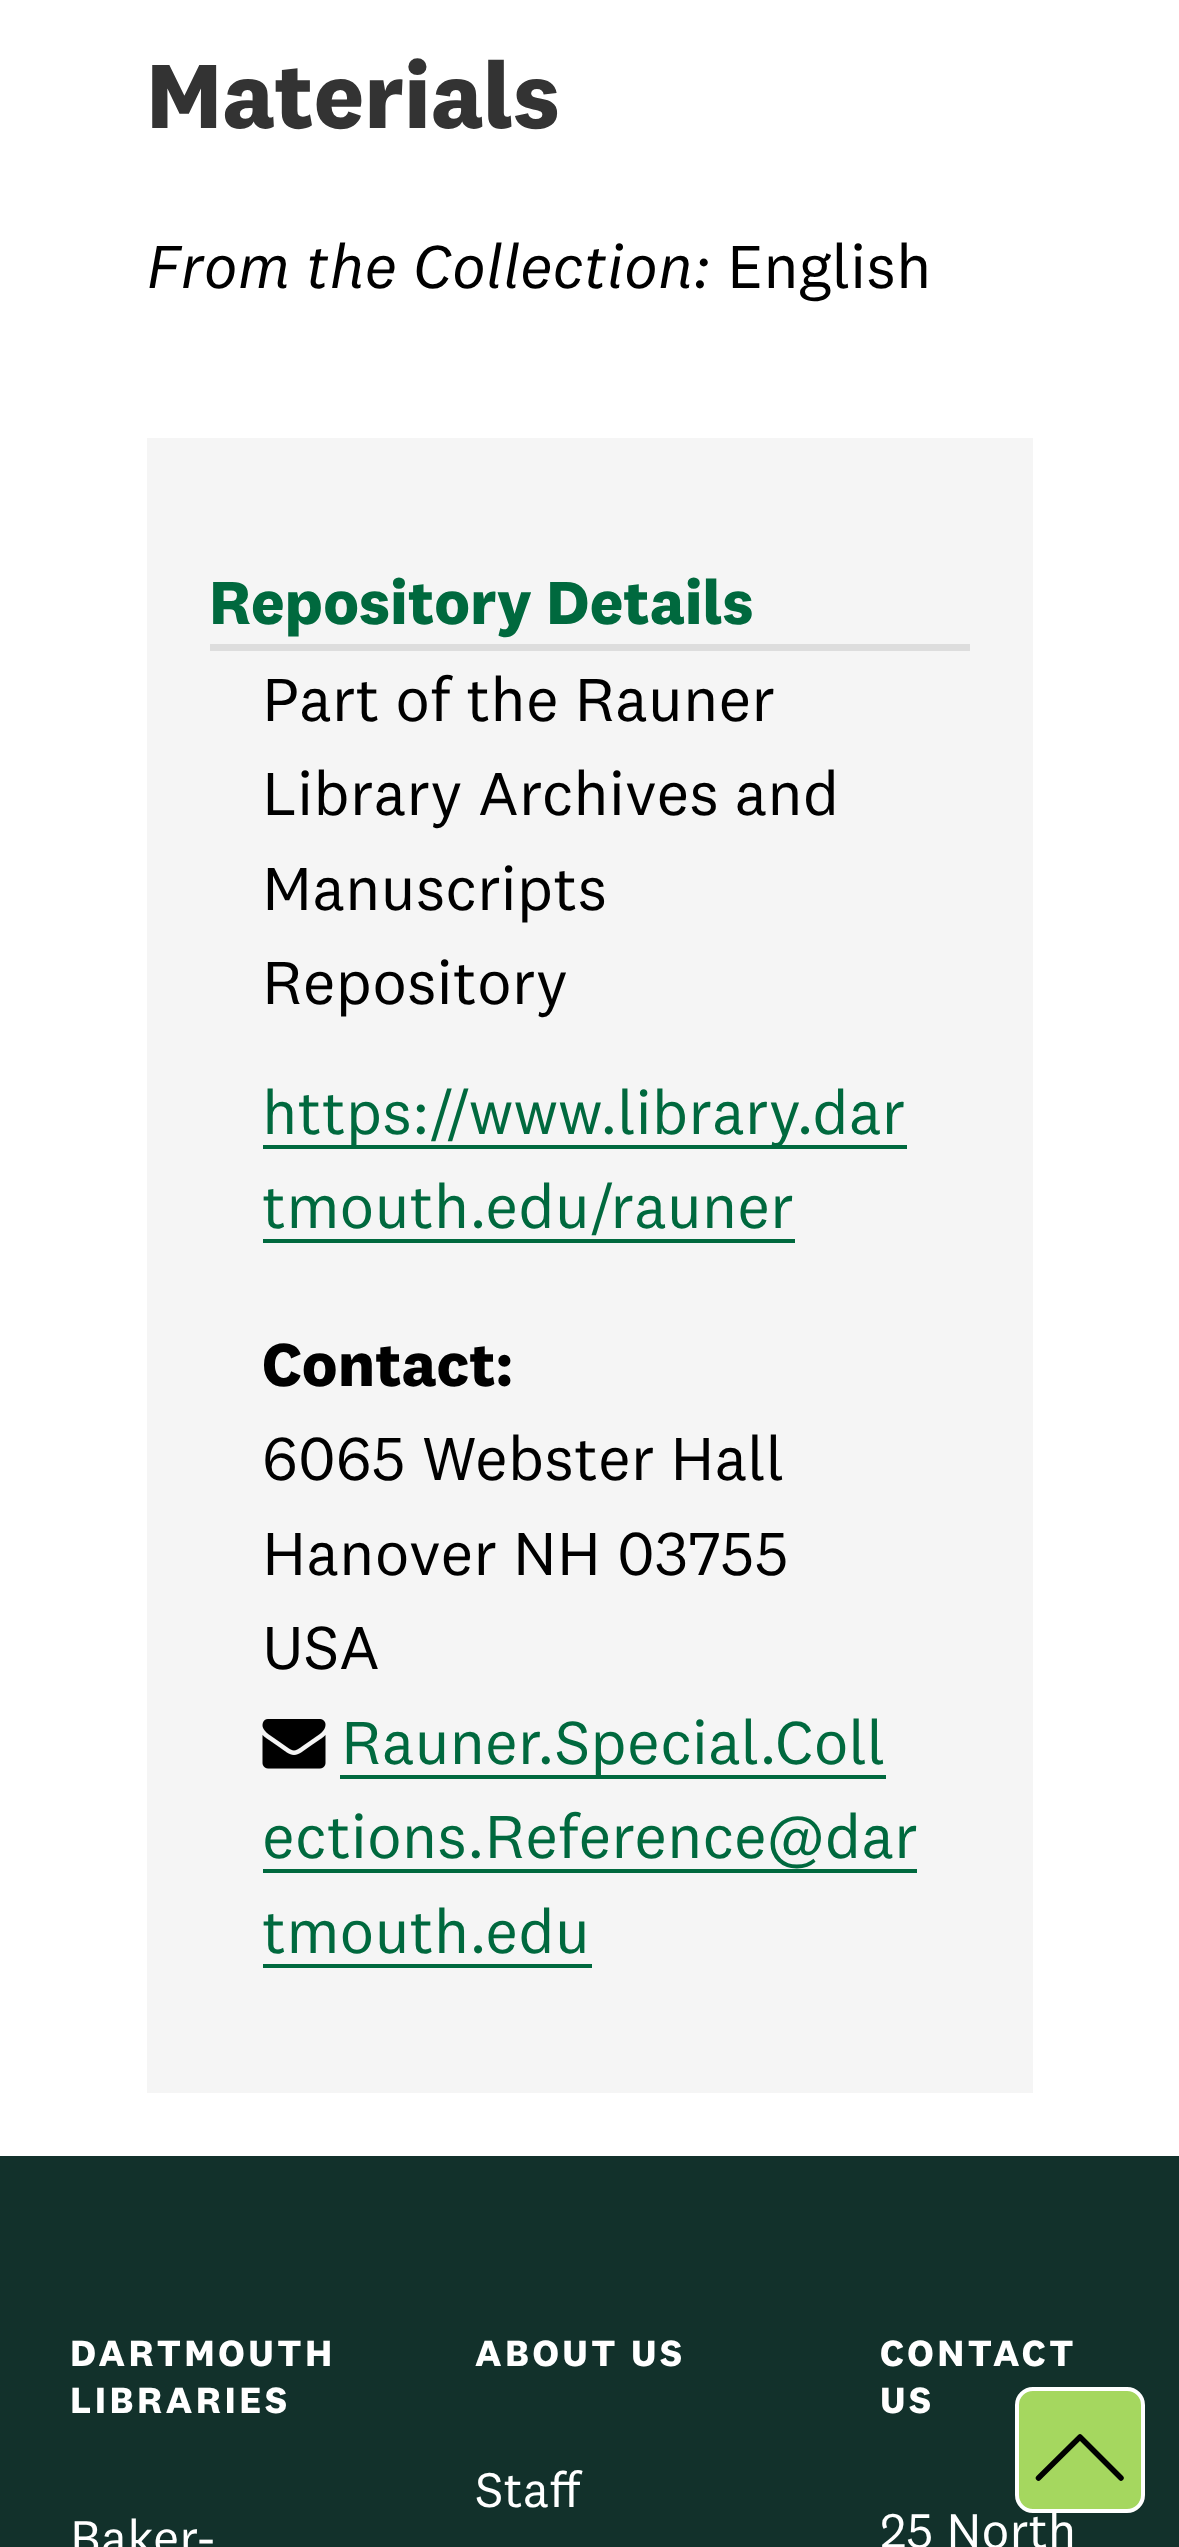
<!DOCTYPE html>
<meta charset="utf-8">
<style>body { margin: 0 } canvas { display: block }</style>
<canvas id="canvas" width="1179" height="2547"></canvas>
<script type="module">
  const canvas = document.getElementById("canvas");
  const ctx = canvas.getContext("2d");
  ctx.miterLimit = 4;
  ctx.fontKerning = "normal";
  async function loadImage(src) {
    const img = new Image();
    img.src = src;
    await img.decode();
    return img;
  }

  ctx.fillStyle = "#ffffff";
  ctx.fillRect(0, 0, 1179, 2547);
  ctx.font = "bold 94.5px 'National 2'";
  ctx.fillStyle = "#333333";
  ctx.fillText("Materials", 146, 128);
  ctx.font = "italic 63px 'National 2'";
  ctx.fillStyle = "#000000";
  ctx.fillText("From the Collection:", 146, 288);
  ctx.font = "63px 'National 2'";
  ctx.fillText("English", 727, 288);
  ctx.fillStyle = "#f5f5f5";
  ctx.fillRect(147, 438, 886, 1655);
  ctx.fillStyle = "#dddddd";
  ctx.fillRect(210, 644, 760, 7);
  ctx.font = "bold 63px 'National 2'";
  ctx.fillStyle = "#00693e";
  ctx.fillText("Repository Details", 209, 624);
  ctx.font = "63px 'National 2'";
  ctx.fillStyle = "#000000";
  ctx.fillText("Part of the Rauner", 262, 721);
  ctx.fillText("Library Archives and", 262, 815);
  ctx.fillText("Manuscripts", 262, 910);
  ctx.fillText("Repository", 262, 1004);
  ctx.fillStyle = "#00693e";
  ctx.fillRect(263, 1145, 644, 4);
  ctx.fillText("https://www.library.dar", 262, 1134);
  ctx.fillText("tmouth.edu/rauner", 262, 1228);
  ctx.fillRect(263, 1239, 532, 4);
  ctx.font = "bold 63px 'National 2'";
  ctx.fillStyle = "#000000";
  ctx.fillText("Contact:", 262, 1386);
  ctx.font = "63px 'National 2'";
  ctx.fillText("6065 Webster Hall", 262, 1480);
  ctx.fillText("Hanover NH 03755", 262, 1575);
  ctx.fillText("USA", 262, 1669);
  ctx.drawImage(await loadImage("img1.png"), 262, 1719, 64, 50);
  ctx.fillStyle = "#00693e";
  ctx.fillRect(340, 1775, 546, 4);
  ctx.fillText("Rauner.Special.Coll", 341, 1764);
  ctx.fillText("ections.Reference@dar", 262, 1858);
  ctx.fillRect(263, 1869, 654, 4);
  ctx.fillText("tmouth.edu", 262, 1953);
  ctx.fillRect(263, 1964, 329, 4);
  ctx.fillStyle = "#12312b";
  ctx.fillRect(0, 2156, 1179, 391);
  ctx.letterSpacing = "3.5px";
  ctx.font = "bold 37.75px 'National 2'";
  ctx.fillStyle = "#ffffff";
  ctx.fillText("DARTMOUTH", 70, 2366);
  ctx.fillText("LIBRARIES", 70, 2413);
  ctx.letterSpacing = "0px";
  ctx.font = "50.5px 'National 2'";
  ctx.fillText("Baker-", 70, 2555);
  ctx.letterSpacing = "3.5px";
  ctx.font = "bold 37.75px 'National 2'";
  ctx.fillText("ABOUT US", 475, 2366);
  ctx.letterSpacing = "0px";
  ctx.font = "50.5px 'National 2'";
  ctx.fillText("Staff", 475, 2507);
  ctx.letterSpacing = "3.5px";
  ctx.font = "bold 37.75px 'National 2'";
  ctx.fillText("CONTACT", 880, 2366);
  ctx.fillText("US", 880, 2413);
  ctx.letterSpacing = "0px";
  ctx.font = "50.5px 'National 2'";
  ctx.fillText("25 North", 880, 2548);
  ctx.fillStyle = "#a5d75f";
  ctx.beginPath();
  ctx.roundRect(1017, 2389, 126, 122, 16);
  ctx.fill();
  ctx.strokeStyle = "#ffffff";
  ctx.lineWidth = 4;
  ctx.stroke();
  ctx.beginPath();
  ctx.moveTo(1121, 2478);
  ctx.lineTo(1080, 2437);
  ctx.lineTo(1038.5, 2478);
  ctx.strokeStyle = "#000000";
  ctx.lineWidth = 5.5;
  ctx.lineCap = "round";
  ctx.lineJoin = "round";
  ctx.stroke();
</script>
